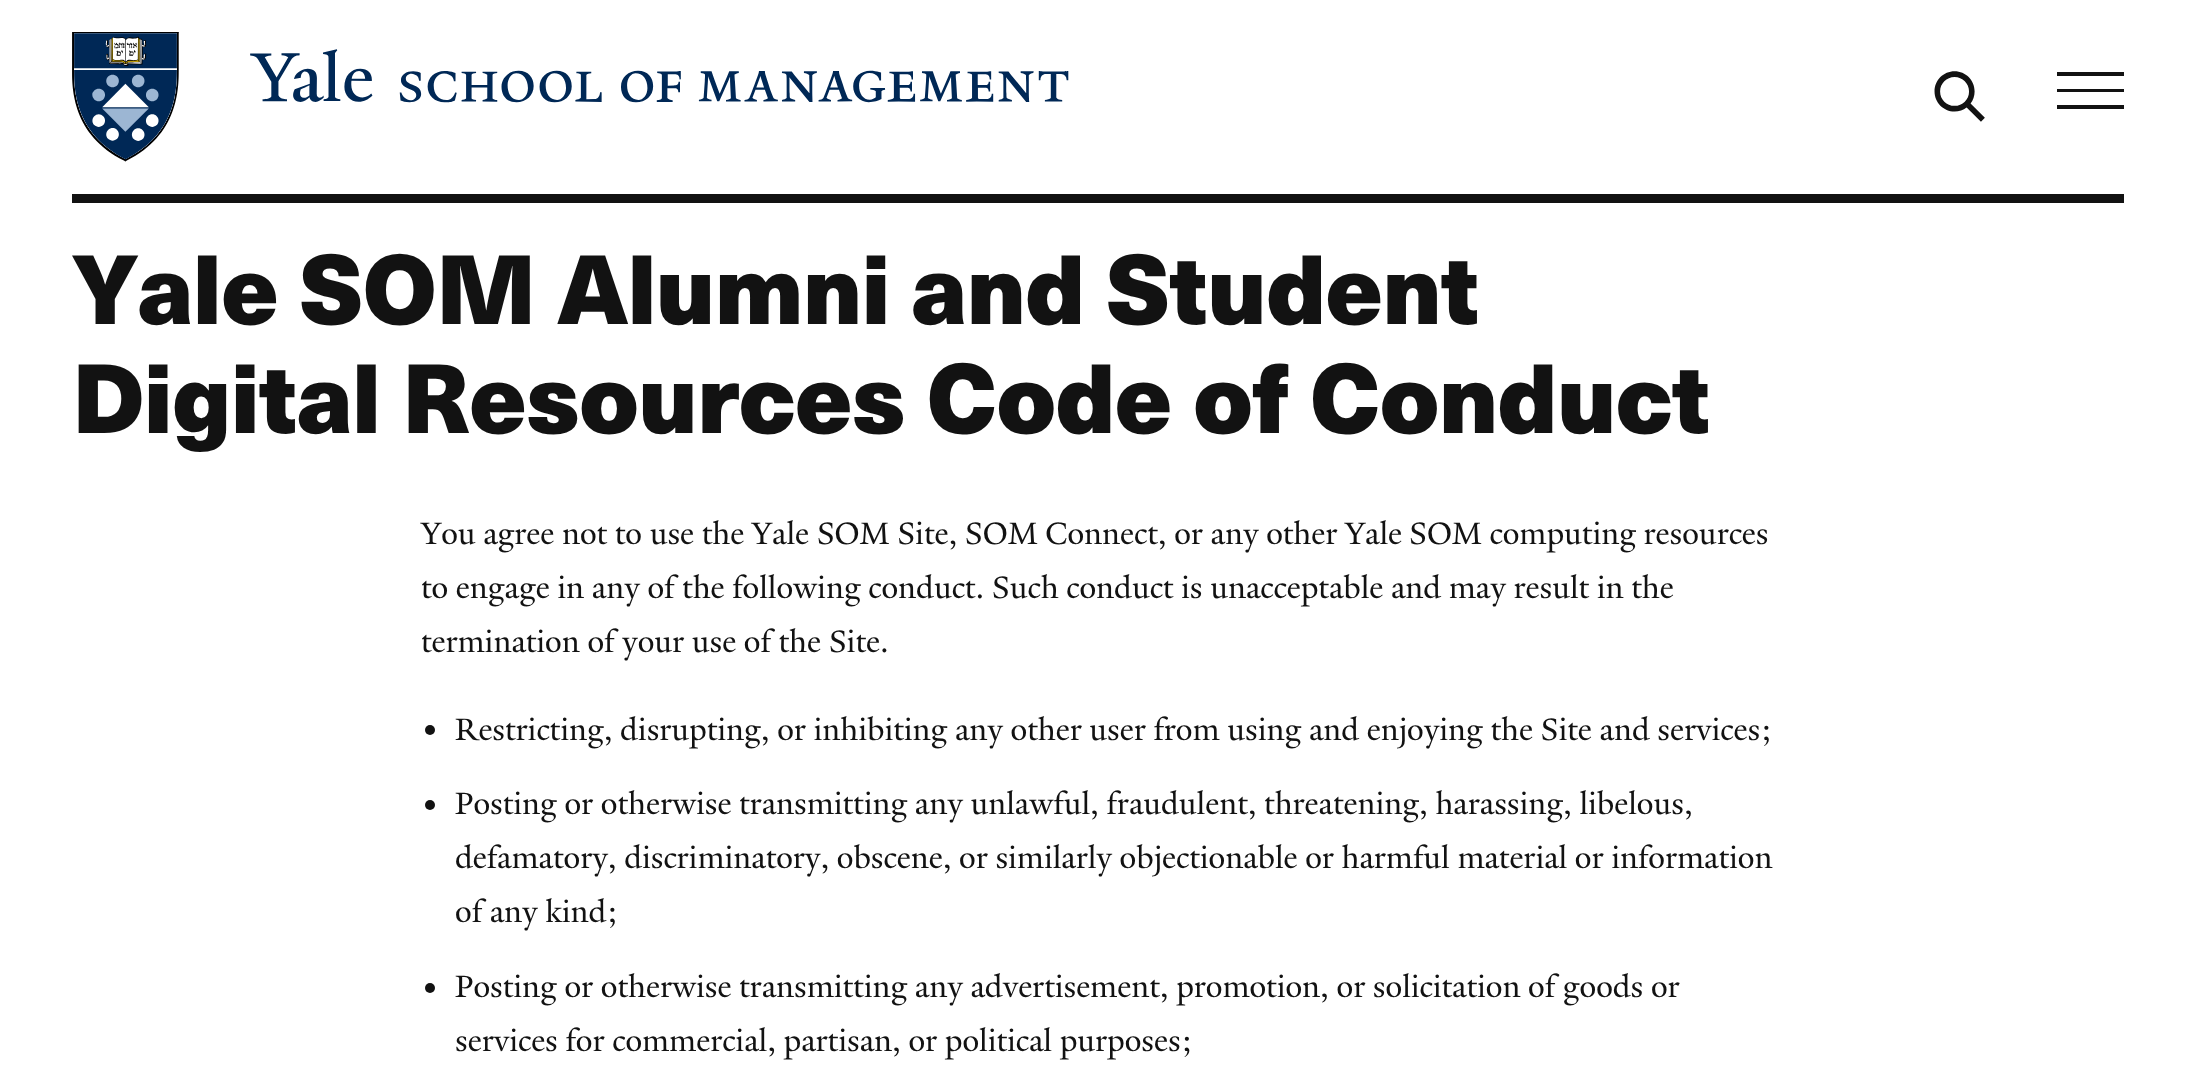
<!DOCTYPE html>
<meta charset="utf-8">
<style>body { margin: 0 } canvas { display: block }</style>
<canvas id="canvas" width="2195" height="1073"></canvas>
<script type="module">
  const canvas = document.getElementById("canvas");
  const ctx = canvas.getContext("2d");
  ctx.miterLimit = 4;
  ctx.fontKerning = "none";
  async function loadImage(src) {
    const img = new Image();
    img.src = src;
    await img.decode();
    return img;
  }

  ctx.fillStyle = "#ffffff";
  ctx.fillRect(0, 0, 2195, 1073);
  ctx.fillStyle = "#121212";
  ctx.fillRect(72, 194, 2052, 9);
  ctx.drawImage(await loadImage("img1.png"), 72, 32, 997, 130);
  ctx.drawImage(await loadImage("img2.png"), 1934, 71, 51, 51);
  ctx.fillRect(2057, 72, 67, 4);
  ctx.fillRect(2057, 89, 67, 3);
  ctx.fillRect(2057, 105, 67, 4);
  ctx.letterSpacing = "-0.55px";
  ctx.font = "900 96.4px 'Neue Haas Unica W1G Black'";
  ctx.fillText("Yale SOM Alumni and Student", 72, 324);
  ctx.fillText("Digital Resources Code of Conduct", 72, 433);
  ctx.letterSpacing = "0px";
  ctx.font = "33.4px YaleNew";
  ctx.fillText("You agree not to use the Yale SOM Site, SOM Connect, or any other Yale", 421, 544);
  ctx.fillText("SOM computing resources", 1409, 544);
  ctx.fillText("to engage in any of the following conduct. Such conduct is unacceptable and may result in the", 421, 598);
  ctx.fillText("termination of your use of the Site.", 421, 652);
  ctx.beginPath();
  ctx.arc(430, 730, 5, 0, Math.PI * 2);
  ctx.fill();
  ctx.fillText("Restricting, disrupting, or inhibiting any other user from using and enjoying the Site and services;", 455, 740);
  ctx.beginPath();
  ctx.arc(430, 805, 5, 0, Math.PI * 2);
  ctx.fill();
  ctx.fillText("Posting or otherwise transmitting any unlawful, fraudulent, threatening, harassing, libelous,", 455, 814);
  ctx.fillText("defamatory, discriminatory, obscene, or similarly objectionable or harmful material or information", 455, 868);
  ctx.fillText("of any kind;", 455, 922);
  ctx.beginPath();
  ctx.arc(430, 988, 5, 0, Math.PI * 2);
  ctx.fill();
  ctx.fillText("Posting or otherwise transmitting any advertisement, promotion, or solicitation of goods or", 455, 997);
  ctx.fillText("services for commercial, partisan, or political purposes;", 455, 1051);
</script>
